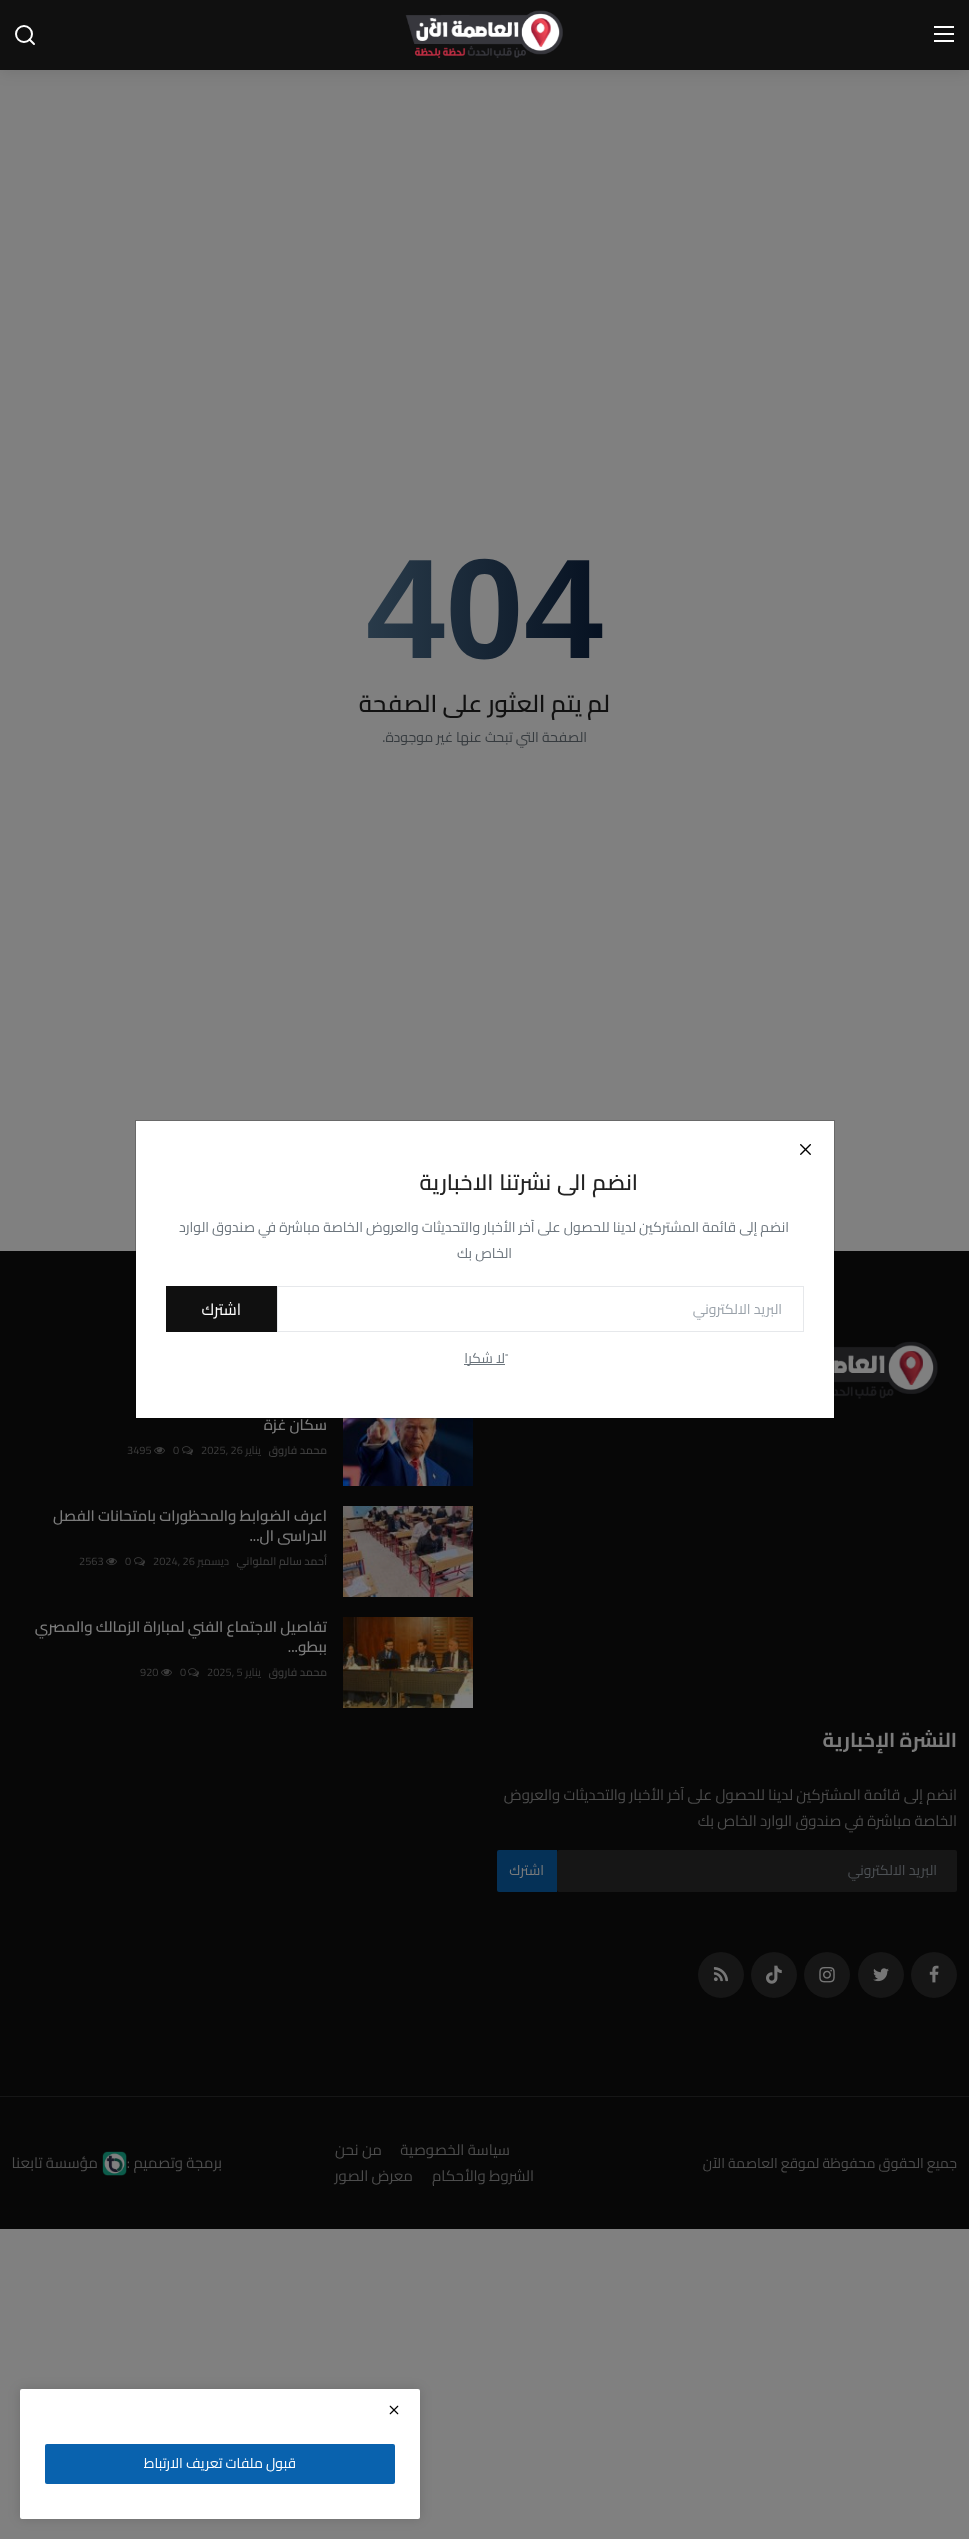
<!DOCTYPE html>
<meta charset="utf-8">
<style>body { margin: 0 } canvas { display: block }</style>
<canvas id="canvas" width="969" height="2539"></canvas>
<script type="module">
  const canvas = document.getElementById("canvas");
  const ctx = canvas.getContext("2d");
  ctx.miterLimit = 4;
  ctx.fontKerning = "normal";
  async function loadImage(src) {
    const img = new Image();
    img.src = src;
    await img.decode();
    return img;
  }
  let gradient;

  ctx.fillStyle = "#808080";
  ctx.fillRect(0, 0, 969, 2539);
  ctx.fillStyle = "rgba(0, 0, 0, 0.1)";
  ctx.filter = "blur(7.5px)";
  ctx.beginPath();
  ctx.rect(0, 2, 969, 70);
  ctx.fill();
  ctx.filter = "none";
  ctx.fillStyle = "#101010";
  ctx.fillRect(0, 0, 969, 70);
  ctx.fillStyle = "#ffffff";
  ctx.fillRect(934, 26, 20, 2);
  ctx.fillRect(934, 33, 20, 2);
  ctx.fillRect(934, 40, 20, 2);
  ctx.drawImage(await loadImage("img1.png"), 405, 10, 158, 48);
  ctx.beginPath();
  ctx.arc(24, 34, 8, 0, Math.PI * 2);
  ctx.strokeStyle = "#ffffff";
  ctx.lineWidth = 2;
  ctx.stroke();
  ctx.beginPath();
  ctx.moveTo(34, 44);
  ctx.lineTo(29.5, 39.5);
  ctx.lineCap = "round";
  ctx.lineJoin = "round";
  ctx.stroke();
  ctx.font = "bold 142px Liberation Sans";
  gradient = ctx.createLinearGradient(359, 609, 610, 609);
  gradient.addColorStop(0, "#2a3c4b");
  gradient.addColorStop(1, "#051020");
  ctx.fillStyle = gradient;
  ctx.fillText("404", 366, 658);
  ctx.direction = "rtl";
  ctx.font = "600 24px Cairo";
  ctx.fillStyle = "#111111";
  ctx.fillText("لم يتم العثور على الصفحة", 610, 712);
  ctx.font = "14px Cairo";
  ctx.fillStyle = "#363b3f";
  ctx.fillText("الصفحة التي تبحث عنها غير موجودة.", 587, 742);
  ctx.fillStyle = "#070707";
  ctx.fillRect(0, 1251, 969, 978);
  ctx.fillStyle = "#ffffff";
  ctx.fillRect(136, 1121, 698, 297);
  ctx.drawImage(await loadImage("img3.png"), 834, 1341, 104, 58);
  ctx.drawImage(await loadImage("img4.png"), 343, 1418, 130, 68);
  ctx.strokeStyle = "rgba(0, 0, 0, 0.18)";
  ctx.lineWidth = 1;
  ctx.lineJoin = "miter";
  ctx.strokeRect(135.5, 1120.5, 699, 298);
  ctx.drawImage(await loadImage("img2.png"), 800, 1144, 11, 11);
  ctx.letterSpacing = "2px";
  ctx.wordSpacing = "-1px";
  ctx.font = "600 22px Cairo";
  ctx.fillStyle = "#222222";
  ctx.fillText("انضم الى نشرتنا الاخبارية", 638, 1190);
  ctx.letterSpacing = "0px";
  ctx.wordSpacing = "0px";
  ctx.font = "14px Cairo";
  ctx.fillStyle = "#6c757d";
  ctx.fillText("انضم إلى قائمة المشتركين لدينا للحصول على آخر الأخبار والتحديثات والعروض الخاصة مباشرة في صندوق الوارد", 789, 1232);
  ctx.fillText("الخاص بك", 512, 1258);
  ctx.strokeStyle = "#e6e8eb";
  ctx.strokeRect(277.5, 1286.5, 526, 45);
  ctx.fillStyle = "#9aa2aa";
  ctx.fillText("البريد الالكتروني", 782, 1314);
  ctx.fillStyle = "#101010";
  ctx.fillRect(166, 1286, 111, 46);
  ctx.font = "16px Cairo";
  ctx.fillStyle = "#ffffff";
  ctx.fillText("اشترك", 241, 1315);
  ctx.fillStyle = "#6c757d";
  ctx.fillRect(464, 1364, 41, 1);
  ctx.font = "14px Cairo";
  ctx.fillText("ًلا شكرا", 505, 1363);
  ctx.font = "600 15px Cairo";
  ctx.fillStyle = "#7b7b7b";
  ctx.fillText("سكان غزة", 327, 1430);
  ctx.font = "600 11px Cairo";
  ctx.fillStyle = "#3d3d3d";
  ctx.fillText("محمد فاروق", 327, 1454);
  ctx.font = "11px Cairo";
  ctx.fillText("يناير", 261, 1454);
  ctx.direction = "ltr";
  ctx.fillText("2025, 26", 201, 1454);
  ctx.drawImage(await loadImage("img5.png"), 182, 1446, 11, 9);
  ctx.fillText("0", 173, 1454);
  ctx.drawImage(await loadImage("img6.png"), 154, 1447, 11, 8);
  ctx.fillText("3495", 127, 1454);
  ctx.drawImage(await loadImage("img7.png"), 343, 1506, 130, 91);
  ctx.direction = "rtl";
  ctx.font = "600 15px Cairo";
  ctx.fillStyle = "#7b7b7b";
  ctx.fillText("اعرف الضوابط والمحظورات بامتحانات الفصل", 327, 1521);
  ctx.fillText("الدراسى ال...", 327, 1541);
  ctx.font = "600 11px Cairo";
  ctx.fillStyle = "#3d3d3d";
  ctx.fillText("أحمد سالم الملواني", 327, 1565);
  ctx.font = "11px Cairo";
  ctx.fillText("ديسمبر", 229, 1565);
  ctx.direction = "ltr";
  ctx.fillText("2024, 26", 153, 1565);
  ctx.drawImage(await loadImage("img5.png"), 134, 1557, 11, 9);
  ctx.fillText("0", 125, 1565);
  ctx.drawImage(await loadImage("img6.png"), 106, 1558, 11, 8);
  ctx.fillText("2563", 79, 1565);
  ctx.drawImage(await loadImage("img8.png"), 343, 1617, 130, 91);
  ctx.direction = "rtl";
  ctx.font = "600 15px Cairo";
  ctx.fillStyle = "#7b7b7b";
  ctx.fillText("تفاصيل الاجتماع الفني لمباراة الزمالك والمصري", 327, 1632);
  ctx.fillText("ببطو...", 327, 1652);
  ctx.font = "600 11px Cairo";
  ctx.fillStyle = "#3d3d3d";
  ctx.fillText("محمد فاروق", 327, 1676);
  ctx.font = "11px Cairo";
  ctx.fillText("يناير", 261, 1676);
  ctx.direction = "ltr";
  ctx.fillText("2025, 5", 207, 1676);
  ctx.drawImage(await loadImage("img5.png"), 188, 1668, 11, 9);
  ctx.fillText("0", 180, 1676);
  ctx.drawImage(await loadImage("img6.png"), 161, 1669, 11, 8);
  ctx.fillText("920", 140, 1676);
  ctx.direction = "rtl";
  ctx.font = "bold 20px Cairo";
  ctx.fillStyle = "#7b7b7b";
  ctx.fillText("النشرة الإخبارية", 957, 1747);
  ctx.font = "15px Cairo";
  ctx.fillStyle = "#4d4d4d";
  ctx.fillText("انضم إلى قائمة المشتركين لدينا للحصول على آخر الأخبار والتحديثات والعروض", 957, 1800);
  ctx.fillText("الخاصة مباشرة في صندوق الوارد الخاص بك", 957, 1826);
  ctx.fillStyle = "#161616";
  ctx.beginPath();
  ctx.roundRect(557, 1850, 400, 42, 2);
  ctx.fill();
  ctx.font = "14px Cairo";
  ctx.fillStyle = "#4d5155";
  ctx.fillText("البريد الالكتروني", 937, 1875);
  ctx.fillStyle = "#053157";
  ctx.beginPath();
  ctx.roundRect(497, 1850, 60, 42, [2, 0, 0, 2]);
  ctx.fill();
  ctx.fillStyle = "#7b7b7b";
  ctx.fillText("اشترك", 544, 1875);
  ctx.fillStyle = "#161616";
  ctx.beginPath();
  ctx.arc(934, 1975, 23, 0, Math.PI * 2);
  ctx.fill();
  ctx.drawImage(await loadImage("img9.png"), 929, 1965, 10, 18);
  ctx.beginPath();
  ctx.arc(881, 1975, 23, 0, Math.PI * 2);
  ctx.fill();
  ctx.drawImage(await loadImage("img10.png"), 873, 1968, 16, 14);
  ctx.beginPath();
  ctx.arc(827, 1975, 23, 0, Math.PI * 2);
  ctx.fill();
  ctx.drawImage(await loadImage("img11.png"), 819, 1967, 16, 16);
  ctx.beginPath();
  ctx.arc(774, 1975, 23, 0, Math.PI * 2);
  ctx.fill();
  ctx.drawImage(await loadImage("img12.png"), 766, 1965, 16, 19);
  ctx.beginPath();
  ctx.arc(721, 1975, 23, 0, Math.PI * 2);
  ctx.fill();
  ctx.drawImage(await loadImage("img13.png"), 713, 1967, 16, 15);
  ctx.fillRect(0, 2096, 969, 1);
  ctx.fillStyle = "#4d4d4d";
  ctx.fillText("جميع الحقوق محفوظة لموقع العاصمة الآن", 957, 2168);
  ctx.font = "15px Cairo";
  ctx.fillText("سياسة الخصوصية", 510, 2155);
  ctx.fillText("من نحن", 382, 2155);
  ctx.fillText("الشروط والأحكام", 534, 2181);
  ctx.fillText("معرض الصور", 413, 2181);
  ctx.fillText("برمجة وتصميم :", 222, 2168);
  ctx.drawImage(await loadImage("img14.png"), 102, 2151, 25, 25);
  ctx.fillText("مؤسسة تابعنا", 98, 2168);
  ctx.fillStyle = "rgba(0, 0, 0, 0.14)";
  ctx.filter = "blur(6px)";
  ctx.beginPath();
  ctx.roundRect(20, 2389, 400, 130, 2);
  ctx.fill();
  ctx.filter = "none";
  ctx.fillStyle = "#ffffff";
  ctx.beginPath();
  ctx.roundRect(20, 2389, 400, 130, 2);
  ctx.fill();
  ctx.drawImage(await loadImage("img15.png"), 389, 2405, 10, 10);
  ctx.fillStyle = "#0962ae";
  ctx.beginPath();
  ctx.roundRect(45, 2444, 350, 40, 2);
  ctx.fill();
  ctx.font = "14px Cairo";
  ctx.fillStyle = "#ffffff";
  ctx.fillText("قبول ملفات تعريف الارتباط", 296, 2468);
</script>
